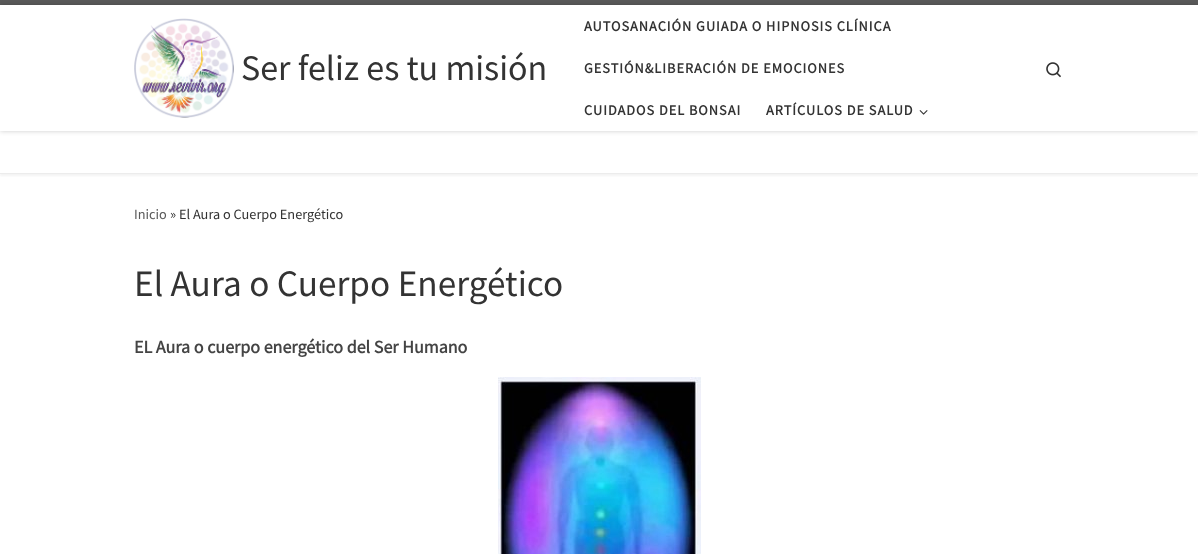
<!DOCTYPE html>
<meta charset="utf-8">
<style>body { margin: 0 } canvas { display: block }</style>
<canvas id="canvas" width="1198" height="554"></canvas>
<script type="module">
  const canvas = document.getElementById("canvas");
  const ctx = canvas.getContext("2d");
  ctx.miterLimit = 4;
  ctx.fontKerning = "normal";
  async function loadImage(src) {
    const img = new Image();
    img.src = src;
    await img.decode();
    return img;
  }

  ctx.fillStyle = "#ffffff";
  ctx.fillRect(0, 0, 1198, 554);
  ctx.save();
  ctx.beginPath();
  ctx.rect(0, 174, 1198, 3);
  ctx.clip();
  ctx.fillStyle = "rgba(102, 102, 102, 0.08)";
  ctx.filter = "blur(1px)";
  ctx.beginPath();
  ctx.rect(0, 2, 1198, 174);
  ctx.fill();
  ctx.filter = "none";
  ctx.restore();
  ctx.fillStyle = "#5a5a5a";
  ctx.fillRect(0, 0, 1198, 5);
  ctx.fillStyle = "#ececec";
  ctx.fillRect(0, 173, 1198, 1);
  ctx.save();
  ctx.beginPath();
  ctx.moveTo(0, 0);
  ctx.lineTo(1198, 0);
  ctx.lineTo(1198, 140);
  ctx.lineTo(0, 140);
  ctx.closePath();
  ctx.moveTo(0, 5);
  ctx.lineTo(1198, 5);
  ctx.lineTo(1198, 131);
  ctx.lineTo(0, 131);
  ctx.closePath();
  ctx.clip("evenodd");
  ctx.fillStyle = "rgba(0, 0, 0, 0.2)";
  ctx.filter = "blur(2.5px)";
  ctx.beginPath();
  ctx.rect(0, 5, 1198, 126);
  ctx.fill();
  ctx.filter = "none";
  ctx.restore();
  ctx.drawImage(await loadImage("img1.png"), 134, 18, 100, 100);
  ctx.font = "36px Source Sans Pro";
  ctx.fillStyle = "#333333";
  ctx.fillText("Ser feliz es tu misión", 241, 80);
  ctx.letterSpacing = "1px";
  ctx.font = "bold 14.25px Source Sans Pro";
  ctx.fillText("AUTOSANACIÓN GUIADA O HIPNOSIS CLÍNICA", 584, 31);
  ctx.fillText("GESTIÓN&LIBERACIÓN DE EMOCIONES", 584, 73);
  ctx.fillText("CUIDADOS DEL BONSAI", 584, 115);
  ctx.fillText("ARTÍCULOS DE SALUD", 766, 115);
  ctx.drawImage(await loadImage("img2.png"), 919, 110, 9, 5);
  ctx.drawImage(await loadImage("img3.png"), 1046, 62, 15, 16);
  ctx.letterSpacing = "0px";
  ctx.font = "14.25px Source Sans Pro";
  ctx.fillStyle = "#5a5a5a";
  ctx.fillText("Inicio", 134, 219);
  ctx.fillStyle = "#333333";
  ctx.fillText("» El Aura o Cuerpo Energético", 170, 219);
  ctx.font = "37.25px Source Sans Pro";
  ctx.fillText("El Aura o Cuerpo Energético", 134, 296);
  ctx.font = "bold 18px Source Sans Pro";
  ctx.fillStyle = "#444444";
  ctx.fillText("EL Aura o cuerpo energético del Ser Humano", 134, 353);
  ctx.drawImage(await loadImage("img4.png"), 498, 377, 203, 177);
</script>
